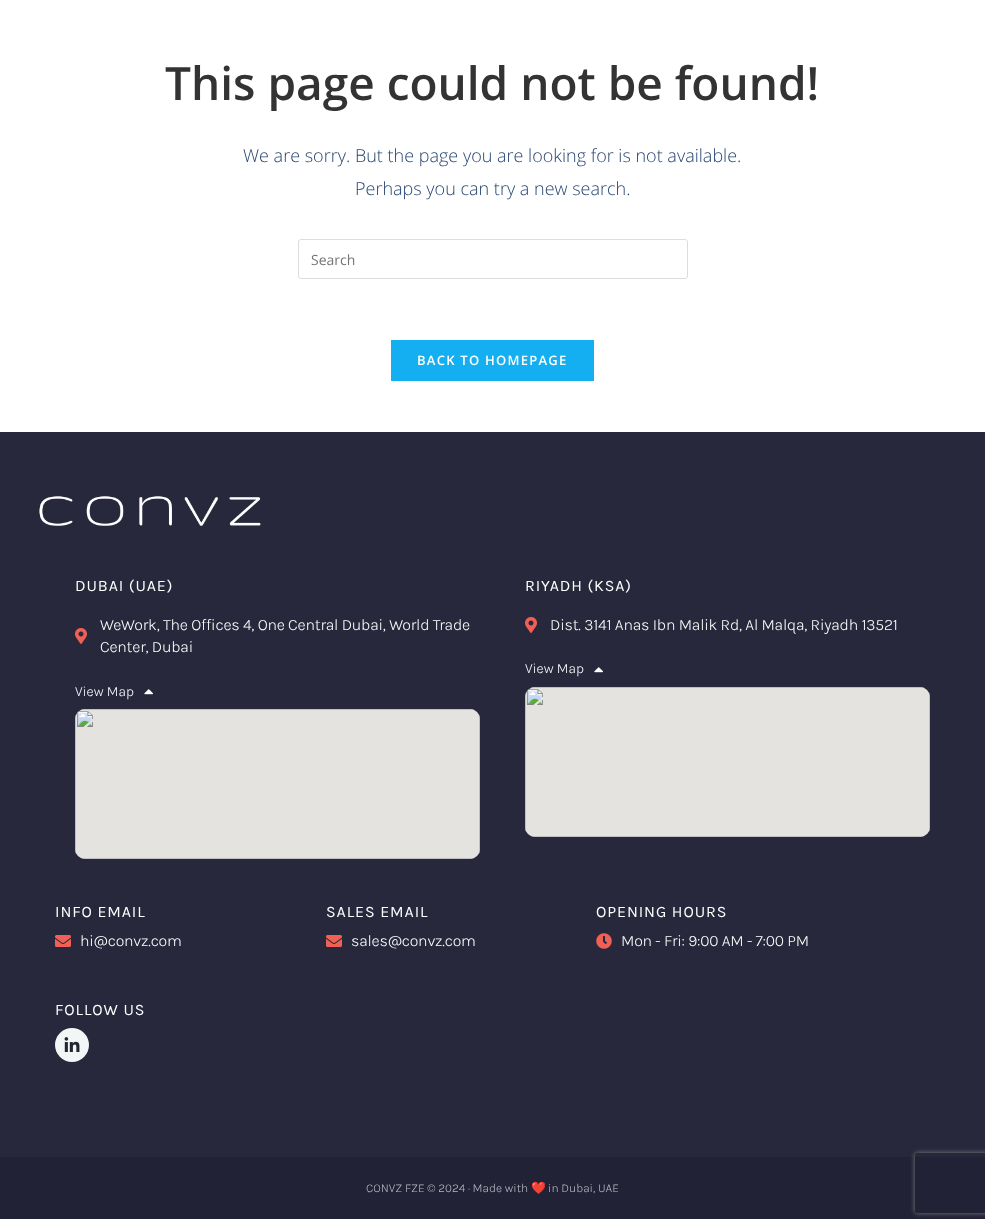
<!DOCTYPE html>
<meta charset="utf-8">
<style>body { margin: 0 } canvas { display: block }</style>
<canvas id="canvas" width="985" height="1227"></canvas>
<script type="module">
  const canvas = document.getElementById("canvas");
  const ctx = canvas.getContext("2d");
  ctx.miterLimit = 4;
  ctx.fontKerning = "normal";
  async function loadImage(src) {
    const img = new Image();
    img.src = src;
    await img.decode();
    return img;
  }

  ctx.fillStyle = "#ffffff";
  ctx.fillRect(0, 0, 985, 1227);
  ctx.font = "600 46px Open Sans";
  ctx.fillStyle = "#333333";
  ctx.fillText("This page could not be found!", 165, 100);
  ctx.font = "300 18px Open Sans";
  ctx.fillStyle = "#284672";
  ctx.fillText("We are sorry. But the page you are looking for is not available.", 243, 162);
  ctx.fillText("Perhaps you can try a new search.", 355, 195);
  ctx.beginPath();
  ctx.roundRect(298.5, 239.5, 389, 39, 2.5);
  ctx.strokeStyle = "#dddddd";
  ctx.stroke();
  ctx.font = "14px Open Sans";
  ctx.fillStyle = "#757575";
  ctx.fillText("Search", 311, 265);
  ctx.fillStyle = "#13aff0";
  ctx.fillRect(391, 340, 203, 41);
  ctx.letterSpacing = "1.25px";
  ctx.font = "600 13px Open Sans";
  ctx.fillStyle = "#ffffff";
  ctx.fillText("BACK TO HOMEPAGE", 417, 365);
  ctx.fillStyle = "#28283c";
  ctx.fillRect(0, 432, 985, 725);
  ctx.drawImage(await loadImage("img1.png"), 39, 496, 222, 30);
  ctx.letterSpacing = "0.9px";
  ctx.font = "16px Karla";
  ctx.fillStyle = "#ffffff";
  ctx.fillText("DUBAI (UAE)", 75, 591);
  ctx.drawImage(await loadImage("img2.png"), 75, 628, 12, 16);
  ctx.letterSpacing = "-0.2px";
  ctx.font = "300 16px Karla";
  ctx.fillText("WeWork, The Offices 4, One Central Dubai, World Trade", 100, 630);
  ctx.fillText("Center, Dubai", 100, 652);
  ctx.letterSpacing = "0px";
  ctx.font = "300 14px Karla";
  ctx.fillText("View Map", 75, 696);
  ctx.drawImage(await loadImage("img3.png"), 144, 689, 9, 6);
  ctx.drawImage(await loadImage("img4.png"), 75, 709, 405, 150);
  ctx.letterSpacing = "0.9px";
  ctx.font = "16px Karla";
  ctx.fillText("RIYADH (KSA)", 525, 591);
  ctx.drawImage(await loadImage("img2.png"), 525, 617, 12, 16);
  ctx.letterSpacing = "-0.2px";
  ctx.font = "300 16px Karla";
  ctx.fillText("Dist. 3141 Anas Ibn Malik Rd, Al Malqa, Riyadh 13521", 550, 630);
  ctx.letterSpacing = "0px";
  ctx.font = "300 14px Karla";
  ctx.fillText("View Map", 525, 673);
  ctx.drawImage(await loadImage("img3.png"), 594, 667, 9, 6);
  ctx.drawImage(await loadImage("img5.png"), 525, 687, 405, 150);
  ctx.letterSpacing = "0.9px";
  ctx.font = "16px Karla";
  ctx.fillText("INFO EMAIL", 55, 917);
  ctx.drawImage(await loadImage("img6.png"), 55, 935, 16, 12);
  ctx.letterSpacing = "-0.2px";
  ctx.font = "300 16px Karla";
  ctx.fillText("hi@convz.com", 80, 946);
  ctx.letterSpacing = "0.9px";
  ctx.font = "16px Karla";
  ctx.fillText("SALES EMAIL", 326, 917);
  ctx.drawImage(await loadImage("img6.png"), 326, 935, 16, 12);
  ctx.letterSpacing = "-0.2px";
  ctx.font = "300 16px Karla";
  ctx.fillText("sales@convz.com", 351, 946);
  ctx.letterSpacing = "0.9px";
  ctx.font = "16px Karla";
  ctx.fillText("OPENING HOURS", 596, 917);
  ctx.drawImage(await loadImage("img7.png"), 596, 933, 16, 16);
  ctx.letterSpacing = "-0.2px";
  ctx.font = "300 16px Karla";
  ctx.fillText("Mon - Fri: 9:00 AM - 7:00 PM", 621, 946);
  ctx.letterSpacing = "0.9px";
  ctx.font = "16px Karla";
  ctx.fillText("FOLLOW US", 55, 1015);
  ctx.fillStyle = "#f4f5f6";
  ctx.beginPath();
  ctx.arc(72, 1045, 17, 0, Math.PI * 2);
  ctx.fill();
  ctx.drawImage(await loadImage("img8.png"), 64, 1037, 16, 15);
  ctx.fillStyle = "#222236";
  ctx.fillRect(0, 1157, 985, 62);
  ctx.letterSpacing = "0px";
  ctx.font = "300 12px Karla";
  ctx.fillStyle = "#babac1";
  ctx.fillText("CONVZ FZE © 2024 · Made with", 366, 1192);
  ctx.font = "12px Noto Color Emoji";
  ctx.fillText("❤️", 531, 1192);
  ctx.font = "300 12px Karla";
  ctx.fillText("in Dubai, UAE", 548, 1192);
  ctx.save();
  ctx.beginPath();
  ctx.moveTo(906, 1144);
  ctx.lineTo(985, 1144);
  ctx.lineTo(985, 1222);
  ctx.lineTo(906, 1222);
  ctx.closePath();
  ctx.moveTo(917, 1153);
  ctx.lineTo(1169, 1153);
  ctx.bezierCurveTo(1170, 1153, 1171, 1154, 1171, 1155);
  ctx.lineTo(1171, 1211);
  ctx.bezierCurveTo(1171, 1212, 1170, 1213, 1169, 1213);
  ctx.lineTo(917, 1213);
  ctx.bezierCurveTo(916, 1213, 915, 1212, 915, 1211);
  ctx.lineTo(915, 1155);
  ctx.bezierCurveTo(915, 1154, 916, 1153, 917, 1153);
  ctx.closePath();
  ctx.clip("evenodd");
  ctx.fillStyle = "#808080";
  ctx.filter = "blur(2.5px)";
  ctx.beginPath();
  ctx.roundRect(915, 1153, 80, 60, 2);
  ctx.fill();
  ctx.filter = "none";
  ctx.restore();
</script>
